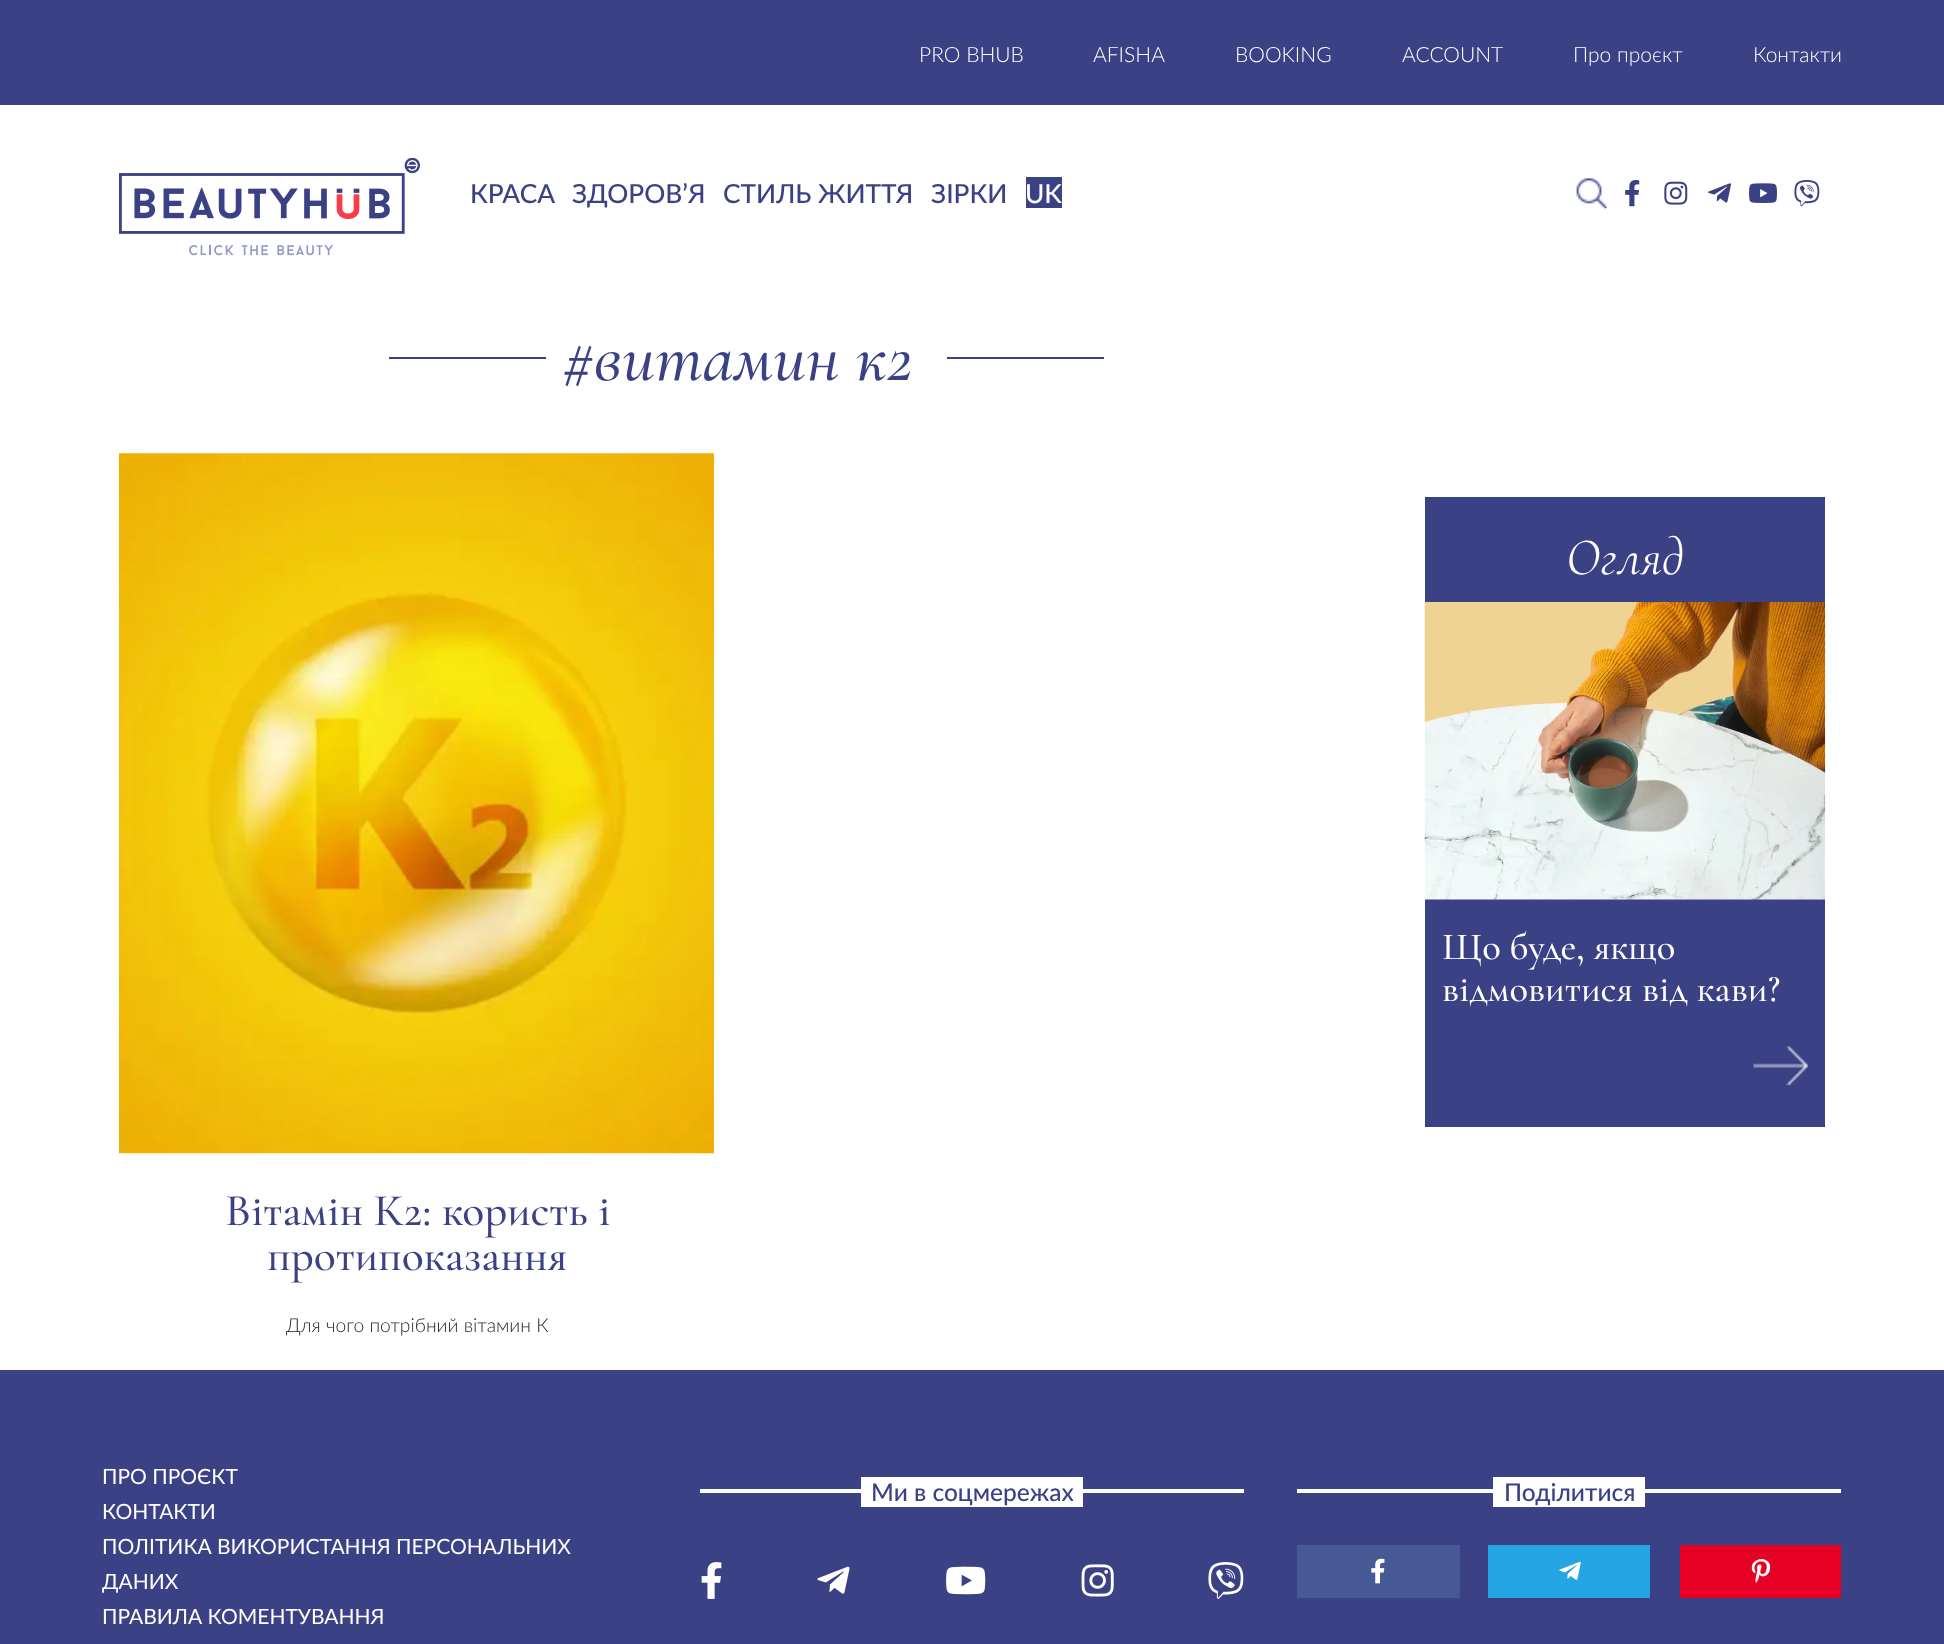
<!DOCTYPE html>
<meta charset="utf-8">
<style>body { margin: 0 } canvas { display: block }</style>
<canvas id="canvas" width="1944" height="1644"></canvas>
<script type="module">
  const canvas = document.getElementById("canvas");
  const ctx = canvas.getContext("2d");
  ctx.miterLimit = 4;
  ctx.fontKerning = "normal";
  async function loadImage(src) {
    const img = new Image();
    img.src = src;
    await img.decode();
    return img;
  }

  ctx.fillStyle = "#ffffff";
  ctx.fillRect(0, 0, 1944, 1644);
  ctx.fillStyle = "#3a4185";
  ctx.fillRect(0, 0, 1944, 105);
  ctx.font = "300 21px Lato";
  ctx.fillStyle = "#ffffff";
  ctx.fillText("PRO BHUB", 919, 62);
  ctx.fillText("AFISHA", 1093, 62);
  ctx.fillText("BOOKING", 1235, 62);
  ctx.fillText("ACCOUNT", 1402, 62);
  ctx.fillText("Про проєкт", 1573, 62);
  ctx.fillText("Контакти", 1753, 62);
  ctx.drawImage(await loadImage("img1.png"), 119, 158, 301, 98);
  ctx.font = "500 26.25px Lato";
  ctx.fillStyle = "#3a4185";
  ctx.fillText("КРАСА", 470, 203);
  ctx.fillText("ЗДОРОВ’Я", 572, 203);
  ctx.fillText("СТИЛЬ ЖИТТЯ", 723, 203);
  ctx.fillText("ЗІРКИ", 931, 203);
  ctx.fillRect(1026, 177, 36, 31);
  ctx.fillStyle = "#ffffff";
  ctx.fillText("UK", 1025, 203);
  ctx.drawImage(await loadImage("img2.png"), 1576, 178, 31, 31);
  ctx.drawImage(await loadImage("img3.png"), 1625, 180, 15, 27);
  ctx.drawImage(await loadImage("img4.png"), 1664, 181, 24, 24);
  ctx.drawImage(await loadImage("img5.png"), 1708, 183, 23, 20);
  ctx.drawImage(await loadImage("img6.png"), 1749, 183, 28, 20);
  ctx.drawImage(await loadImage("img7.png"), 1794, 180, 26, 27);
  ctx.fillStyle = "#3a4185";
  ctx.fillRect(389, 357, 157, 2);
  ctx.font = "italic 500 70px Cormorant Garamond";
  ctx.fillText("#витамин к2", 563, 380);
  ctx.fillRect(947, 357, 157, 2);
  ctx.drawImage(await loadImage("img8.png"), 119, 453, 595, 701);
  ctx.font = "500 45.5px Cormorant Garamond";
  ctx.fillText("Вітамін К2: користь і", 225, 1225);
  ctx.fillText("протипоказання", 267, 1270);
  ctx.font = "300 19.25px Lato";
  ctx.fillStyle = "#1f1f1f";
  ctx.fillText("Для чого потрібний вітамин К", 286, 1332);
  ctx.fillStyle = "#3a4185";
  ctx.fillRect(1425, 497, 400, 630);
  ctx.font = "italic 52.5px Cormorant Garamond";
  ctx.fillStyle = "#ffffff";
  ctx.fillText("Огляд", 1566, 574);
  ctx.drawImage(await loadImage("img9.png"), 1424, 602, 402, 298);
  ctx.font = "500 38.5px Cormorant Garamond";
  ctx.fillText("Що буде, якщо", 1442, 959);
  ctx.fillText("відмовитися від кави?", 1442, 1001);
  ctx.drawImage(await loadImage("img10.png"), 1753, 1046, 55, 39);
  ctx.fillStyle = "#3a4185";
  ctx.fillRect(0, 1370, 1944, 274);
  ctx.font = "21px Lato";
  ctx.fillStyle = "#ffffff";
  ctx.fillText("ПРО ПРОЄКТ", 102, 1484);
  ctx.fillText("КОНТАКТИ", 102, 1519);
  ctx.fillText("ПОЛІТИКА ВИКОРИСТАННЯ ПЕРСОНАЛЬНИХ", 102, 1554);
  ctx.fillText("ДАНИХ", 102, 1589);
  ctx.fillText("ПРАВИЛА КОМЕНТУВАННЯ", 102, 1624);
  ctx.fillRect(700, 1489, 544, 4);
  ctx.fillRect(861, 1477, 222, 30);
  ctx.font = "500 24.5px Lato";
  ctx.fillStyle = "#3a4185";
  ctx.fillText("Ми в соцмережах", 871, 1501);
  ctx.drawImage(await loadImage("img11.png"), 701, 1562, 21, 37);
  ctx.drawImage(await loadImage("img12.png"), 817, 1566, 33, 28);
  ctx.drawImage(await loadImage("img13.png"), 946, 1566, 40, 29);
  ctx.drawImage(await loadImage("img14.png"), 1081, 1564, 33, 33);
  ctx.drawImage(await loadImage("img15.png"), 1208, 1562, 36, 37);
  ctx.fillStyle = "#ffffff";
  ctx.fillRect(1297, 1489, 544, 4);
  ctx.fillRect(1493, 1477, 152, 30);
  ctx.fillStyle = "#3a4185";
  ctx.fillText("Поділитися", 1504, 1501);
  ctx.fillStyle = "#475995";
  ctx.fillRect(1297, 1545, 163, 53);
  ctx.drawImage(await loadImage("img16.png"), 1371, 1558, 14, 26);
  ctx.fillStyle = "#26a5e4";
  ctx.fillRect(1488, 1545, 162, 53);
  ctx.drawImage(await loadImage("img17.png"), 1559, 1561, 22, 19);
  ctx.fillStyle = "#e60023";
  ctx.fillRect(1680, 1545, 161, 53);
  ctx.drawImage(await loadImage("img18.png"), 1751, 1559, 20, 24);
</script>
